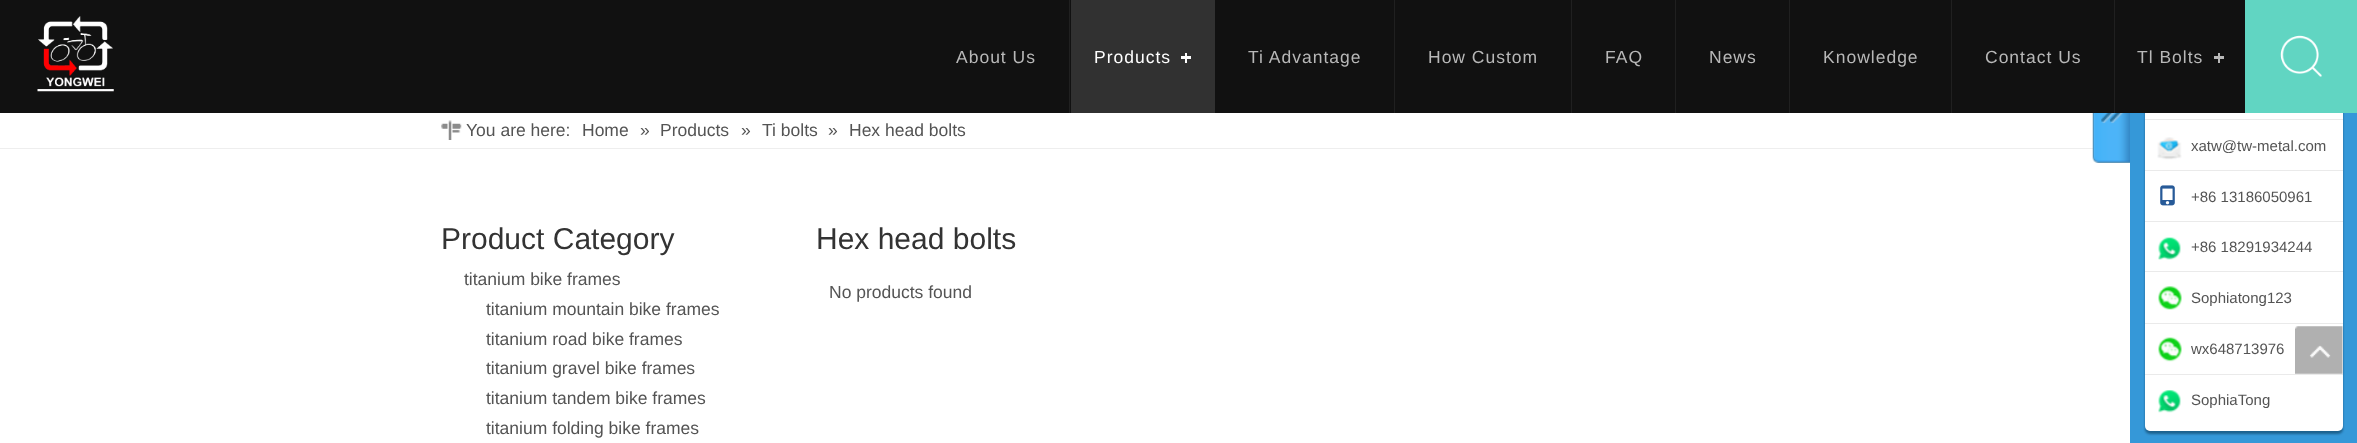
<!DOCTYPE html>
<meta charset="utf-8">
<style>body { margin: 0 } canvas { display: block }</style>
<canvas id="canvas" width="2357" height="443"></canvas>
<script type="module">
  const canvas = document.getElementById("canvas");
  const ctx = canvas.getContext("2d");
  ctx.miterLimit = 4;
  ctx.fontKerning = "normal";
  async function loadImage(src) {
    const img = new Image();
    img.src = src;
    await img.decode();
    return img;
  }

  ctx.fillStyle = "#ffffff";
  ctx.fillRect(0, 0, 2357, 443);
  ctx.fillStyle = "#3598d8";
  ctx.fillRect(2130, 113, 227, 330);
  ctx.fillStyle = "rgba(13, 62, 93, 0.6)";
  ctx.filter = "blur(1px)";
  ctx.beginPath();
  ctx.roundRect(2145, 15, 198, 419, 5);
  ctx.fill();
  ctx.filter = "none";
  ctx.fillStyle = "#ffffff";
  ctx.beginPath();
  ctx.roundRect(2145, 13, 198, 418, 5);
  ctx.fill();
  ctx.fillStyle = "#111111";
  ctx.fillRect(0, 0, 2245, 113);
  ctx.drawImage(await loadImage("img1.png"), 37, 16, 77, 76);
  ctx.fillStyle = "#202020";
  ctx.fillRect(1069, 0, 1, 113);
  ctx.letterSpacing = "1px";
  ctx.font = "17.5px Liberation Sans";
  ctx.fillStyle = "#b8b8b8";
  ctx.fillText("About Us", 956, 63);
  ctx.fillStyle = "#313131";
  ctx.fillRect(1071, 0, 144, 113);
  ctx.fillStyle = "#ffffff";
  ctx.fillText("Products", 1094, 63);
  ctx.fillRect(1185, 53, 2, 10);
  ctx.fillRect(1181, 56, 10, 3);
  ctx.fillStyle = "#202020";
  ctx.fillRect(1394, 0, 1, 113);
  ctx.fillStyle = "#b8b8b8";
  ctx.fillText("Ti Advantage", 1248, 63);
  ctx.fillStyle = "#202020";
  ctx.fillRect(1571, 0, 1, 113);
  ctx.fillStyle = "#b8b8b8";
  ctx.fillText("How Custom", 1428, 63);
  ctx.fillStyle = "#202020";
  ctx.fillRect(1675, 0, 1, 113);
  ctx.fillStyle = "#b8b8b8";
  ctx.fillText("FAQ", 1605, 63);
  ctx.fillStyle = "#202020";
  ctx.fillRect(1789, 0, 1, 113);
  ctx.fillStyle = "#b8b8b8";
  ctx.fillText("News", 1709, 63);
  ctx.fillStyle = "#202020";
  ctx.fillRect(1951, 0, 1, 113);
  ctx.fillStyle = "#b8b8b8";
  ctx.fillText("Knowledge", 1823, 63);
  ctx.fillStyle = "#202020";
  ctx.fillRect(2114, 0, 1, 113);
  ctx.fillStyle = "#b8b8b8";
  ctx.fillText("Contact Us", 1985, 63);
  ctx.fillText("Tl Bolts", 2137, 63);
  ctx.fillRect(2218, 53, 2, 10);
  ctx.fillRect(2214, 56, 10, 3);
  ctx.fillStyle = "#61d5c2";
  ctx.fillRect(2245, 0, 112, 113);
  ctx.drawImage(await loadImage("img2.png"), 2280, 35, 42, 42);
  ctx.fillStyle = "#eeeeee";
  ctx.fillRect(0, 148, 2093, 1);
  ctx.drawImage(await loadImage("img3.png"), 441, 120, 21, 20);
  ctx.letterSpacing = "0px";
  ctx.fillStyle = "#545454";
  ctx.fillText("You are here:", 466, 136);
  ctx.fillText("Home", 582, 136);
  ctx.fillText("»", 640, 136);
  ctx.fillText("Products", 660, 136);
  ctx.fillText("»", 741, 136);
  ctx.fillText("Ti bolts", 762, 136);
  ctx.fillText("»", 828, 136);
  ctx.fillText("Hex head bolts", 849, 136);
  ctx.font = "30px Liberation Sans";
  ctx.fillStyle = "#333333";
  ctx.fillText("Product Category", 441, 249);
  ctx.font = "17.5px Liberation Sans";
  ctx.fillStyle = "#545454";
  ctx.fillText("titanium bike frames", 464, 285);
  ctx.fillText("titanium mountain bike frames", 486, 315);
  ctx.fillText("titanium road bike frames", 486, 345);
  ctx.fillText("titanium gravel bike frames", 486, 374);
  ctx.fillText("titanium tandem bike frames", 486, 404);
  ctx.fillText("titanium folding bike frames", 486, 434);
  ctx.font = "30px Liberation Sans";
  ctx.fillStyle = "#333333";
  ctx.fillText("Hex head bolts", 816, 249);
  ctx.font = "17.5px Liberation Sans";
  ctx.fillStyle = "#545454";
  ctx.fillText("No products found", 829, 298);
  ctx.drawImage(await loadImage("img4.png"), 2092, 113, 38, 50);
  ctx.fillStyle = "#eaeaea";
  ctx.fillRect(2145, 119, 198, 1);
  ctx.drawImage(await loadImage("img5.png"), 2157, 137, 25, 23);
  ctx.font = "15px Liberation Sans";
  ctx.fillStyle = "#545454";
  ctx.fillText("xatw@tw-metal.com", 2191, 151);
  ctx.fillStyle = "#eaeaea";
  ctx.fillRect(2145, 170, 198, 1);
  ctx.drawImage(await loadImage("img6.png"), 2160, 185, 15, 21);
  ctx.fillStyle = "#545454";
  ctx.fillText("+86 13186050961", 2191, 202);
  ctx.fillStyle = "#eaeaea";
  ctx.fillRect(2145, 221, 198, 1);
  ctx.drawImage(await loadImage("img7.png"), 2158, 237, 23, 23);
  ctx.fillStyle = "#545454";
  ctx.fillText("+86 18291934244", 2191, 252);
  ctx.fillStyle = "#eaeaea";
  ctx.fillRect(2145, 271, 198, 1);
  ctx.drawImage(await loadImage("img8.png"), 2158, 286, 24, 24);
  ctx.fillStyle = "#545454";
  ctx.fillText("Sophiatong123", 2191, 303);
  ctx.fillStyle = "#eaeaea";
  ctx.fillRect(2145, 323, 198, 1);
  ctx.drawImage(await loadImage("img9.png"), 2158, 337, 24, 25);
  ctx.fillStyle = "#545454";
  ctx.fillText("wx648713976", 2191, 354);
  ctx.fillStyle = "#eaeaea";
  ctx.fillRect(2145, 374, 198, 1);
  ctx.drawImage(await loadImage("img10.png"), 2158, 390, 23, 23);
  ctx.fillStyle = "#545454";
  ctx.fillText("SophiaTong", 2191, 405);
  ctx.drawImage(await loadImage("img11.png"), 2295, 326, 48, 48);
</script>
